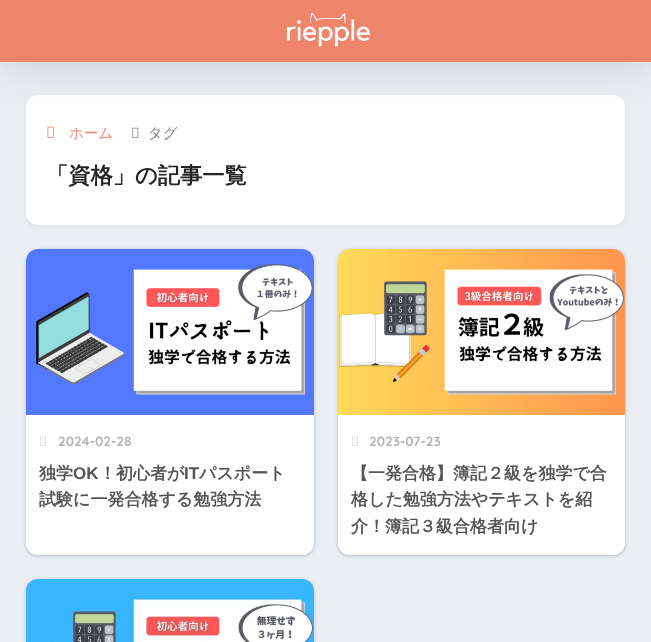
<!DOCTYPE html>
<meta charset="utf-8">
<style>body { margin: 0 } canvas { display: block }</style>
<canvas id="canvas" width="651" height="642"></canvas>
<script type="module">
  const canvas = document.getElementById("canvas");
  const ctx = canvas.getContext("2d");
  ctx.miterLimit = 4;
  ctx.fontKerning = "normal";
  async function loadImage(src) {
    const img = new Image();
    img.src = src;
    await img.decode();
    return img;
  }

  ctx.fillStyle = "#eaedf2";
  ctx.fillRect(0, 0, 651, 642);
  ctx.fillStyle = "rgba(67, 133, 187, 0.07)";
  ctx.filter = "blur(2px)";
  ctx.beginPath();
  ctx.roundRect(26, 97, 599, 130, 12);
  ctx.fill();
  ctx.filter = "none";
  ctx.fillStyle = "#ffffff";
  ctx.beginPath();
  ctx.roundRect(26, 95, 599, 130, 12);
  ctx.fill();
  ctx.drawImage(await loadImage("img2.png"), 47, 126, 7, 12);
  ctx.drawImage(await loadImage("img3.png"), 132, 127, 7, 11);
  ctx.fillStyle = "rgba(0, 12, 66, 0.15)";
  ctx.filter = "blur(22.5px)";
  ctx.beginPath();
  ctx.rect(0, 0, 651, 62);
  ctx.fill();
  ctx.filter = "none";
  ctx.fillStyle = "#ef866b";
  ctx.fillRect(0, 0, 651, 62);
  ctx.drawImage(await loadImage("img1.png"), 286, 13, 84, 34);
  ctx.font = "500 14.5px WenQuanYi Zen Hei";
  ctx.fillText("ホーム", 69, 138);
  ctx.fillStyle = "#808080";
  ctx.fillText("タグ", 148, 138);
  ctx.font = "bold 22.25px WenQuanYi Zen Hei";
  ctx.fillStyle = "#252525";
  ctx.fillText("「資格」の記事一覧", 46, 183);
  ctx.fillStyle = "rgba(24, 44, 84, 0.1)";
  ctx.filter = "blur(1.5px)";
  ctx.beginPath();
  ctx.roundRect(25, 249, 290, 308, 13);
  ctx.fill();
  ctx.filter = "none";
  ctx.filter = "blur(1px)";
  ctx.beginPath();
  ctx.roundRect(26, 250, 288, 306, 12);
  ctx.fill();
  ctx.filter = "none";
  ctx.fillStyle = "#ffffff";
  ctx.beginPath();
  ctx.roundRect(26, 249, 288, 306, 12);
  ctx.fill();
  ctx.drawImage(await loadImage("img4.png"), 26, 249, 288, 166);
  ctx.drawImage(await loadImage("img5.png"), 40, 436, 6, 10);
  ctx.font = "bold 13.5px Quicksand";
  ctx.fillStyle = "#b5b5b5";
  ctx.fillText("2024-02-28", 58, 446);
  ctx.font = "bold 17px WenQuanYi Zen Hei";
  ctx.fillStyle = "#555555";
  ctx.fillText("独学", 39, 479);
  ctx.font = "bold 17px Liberation Sans";
  ctx.fillText("OK", 73, 479);
  ctx.font = "bold 17px WenQuanYi Zen Hei";
  ctx.fillText("！初心者が", 99, 479);
  ctx.font = "bold 17px Liberation Sans";
  ctx.fillText("IT", 184, 479);
  ctx.font = "bold 17px WenQuanYi Zen Hei";
  ctx.fillText("パスポート", 199, 479);
  ctx.fillText("試験に一発合格する勉強方法", 39, 505);
  ctx.fillStyle = "rgba(24, 44, 84, 0.1)";
  ctx.filter = "blur(1.5px)";
  ctx.beginPath();
  ctx.roundRect(337, 249, 289, 308, 13);
  ctx.fill();
  ctx.filter = "none";
  ctx.filter = "blur(1px)";
  ctx.beginPath();
  ctx.roundRect(338, 250, 287, 306, 12);
  ctx.fill();
  ctx.filter = "none";
  ctx.fillStyle = "#ffffff";
  ctx.beginPath();
  ctx.roundRect(338, 249, 287, 306, 12);
  ctx.fill();
  ctx.drawImage(await loadImage("img6.png"), 338, 249, 287, 166);
  ctx.drawImage(await loadImage("img5.png"), 352, 436, 6, 10);
  ctx.font = "bold 13.5px Quicksand";
  ctx.fillStyle = "#b5b5b5";
  ctx.fillText("2023-07-23", 369, 446);
  ctx.font = "bold 17px WenQuanYi Zen Hei";
  ctx.fillStyle = "#555555";
  ctx.fillText("【一発合格】簿記２級を独学で合", 351, 479);
  ctx.fillText("格した勉強方法やテキストを紹", 351, 505);
  ctx.fillText("介！簿記３級合格者向け", 351, 532);
  ctx.fillStyle = "rgba(24, 44, 84, 0.1)";
  ctx.filter = "blur(1.5px)";
  ctx.beginPath();
  ctx.roundRect(25, 579, 290, 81, 13);
  ctx.fill();
  ctx.filter = "none";
  ctx.filter = "blur(1px)";
  ctx.beginPath();
  ctx.roundRect(26, 580, 288, 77, 12);
  ctx.fill();
  ctx.filter = "none";
  ctx.drawImage(await loadImage("img7.png"), 26, 579, 288, 63);
</script>
